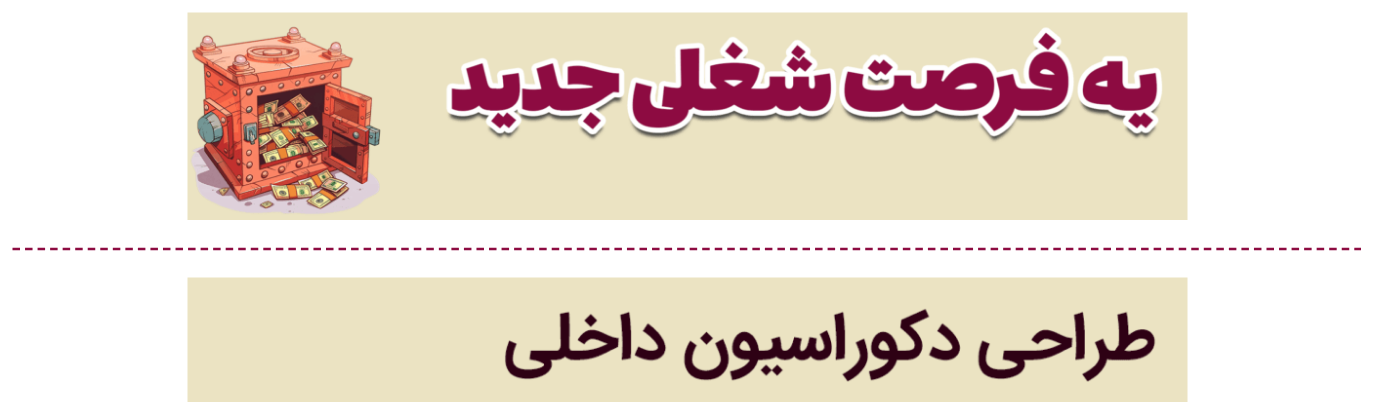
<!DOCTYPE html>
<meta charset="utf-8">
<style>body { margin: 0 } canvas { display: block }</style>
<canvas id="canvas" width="1373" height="402"></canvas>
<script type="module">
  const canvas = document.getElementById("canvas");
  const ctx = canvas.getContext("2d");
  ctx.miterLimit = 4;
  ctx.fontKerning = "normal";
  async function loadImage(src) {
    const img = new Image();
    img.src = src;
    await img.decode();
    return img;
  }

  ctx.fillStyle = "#ffffff";
  ctx.fillRect(0, 0, 1373, 402);
  ctx.drawImage(await loadImage("img1.png"), 187, 12, 1001, 208);
  ctx.beginPath();
  ctx.moveTo(12.5, 249);
  ctx.lineTo(1361, 249);
  ctx.strokeStyle = "#8d0b41";
  ctx.lineWidth = 2.5;
  ctx.setLineDash([7.5, 5.04]);
  ctx.stroke();
  ctx.drawImage(await loadImage("img2.png"), 187, 277, 1001, 125);
</script>
